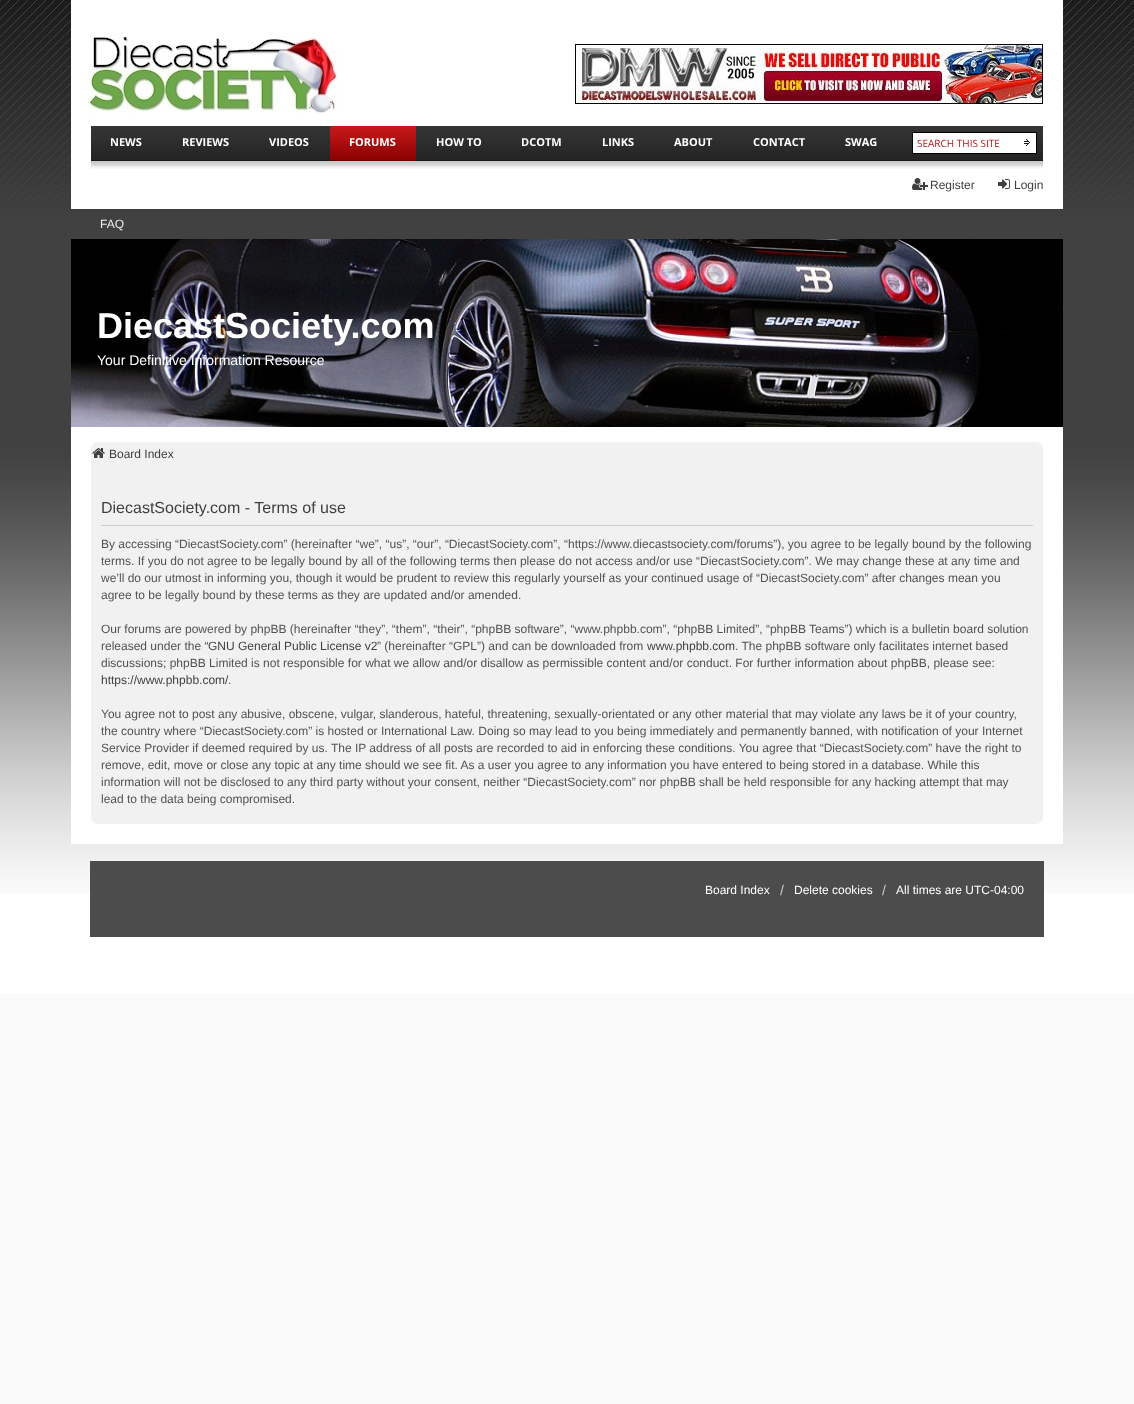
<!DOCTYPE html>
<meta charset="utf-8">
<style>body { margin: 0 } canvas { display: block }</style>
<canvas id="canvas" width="1134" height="1404"></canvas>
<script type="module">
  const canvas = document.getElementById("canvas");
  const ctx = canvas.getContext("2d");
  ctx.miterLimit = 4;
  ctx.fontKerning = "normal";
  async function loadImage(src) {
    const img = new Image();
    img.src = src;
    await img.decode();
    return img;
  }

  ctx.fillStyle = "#f9f9f9";
  ctx.fillRect(0, 0, 1134, 1404);
  ctx.fillStyle = "#ffffff";
  ctx.fillRect(0, 893, 1134, 101);
  ctx.drawImage(await loadImage("img1.png"), 0, 0, 1134, 893);
  ctx.fillRect(71, 0, 992, 209);
  ctx.drawImage(await loadImage("img2.png"), 91, 126, 952, 43);
  ctx.drawImage(await loadImage("img3.png"), 88, 32, 250, 81);
  ctx.drawImage(await loadImage("img4.png"), 575, 44, 468, 60);
  ctx.font = "bold 11px Open Sans";
  ctx.fillText("NEWS", 110, 146);
  ctx.fillText("REVIEWS", 182, 146);
  ctx.fillText("VIDEOS", 269, 146);
  ctx.drawImage(await loadImage("img5.png"), 330, 126, 86, 35);
  ctx.fillText("FORUMS", 349, 146);
  ctx.fillText("HOW TO", 436, 146);
  ctx.fillText("DCOTM", 521, 146);
  ctx.fillText("LINKS", 602, 146);
  ctx.fillText("ABOUT", 674, 146);
  ctx.fillText("CONTACT", 753, 146);
  ctx.fillText("SWAG", 845, 146);
  ctx.strokeStyle = "#000000";
  ctx.strokeRect(912.5, 132.5, 124, 21);
  ctx.fillRect(913, 133, 105, 20);
  ctx.font = "10px Open Sans";
  ctx.fillStyle = "#b91415";
  ctx.fillText("SEARCH THIS SITE", 917, 147);
  ctx.drawImage(await loadImage("img6.png"), 1018, 133, 18, 20);
  ctx.drawImage(await loadImage("img7.png"), 912, 178, 16, 12);
  ctx.font = "12px Liberation Sans";
  ctx.fillStyle = "#3f3f3f";
  ctx.fillText("Register", 930, 189);
  ctx.drawImage(await loadImage("img8.png"), 998, 179, 12, 10);
  ctx.fillText("Login", 1014, 189);
  ctx.fillStyle = "#eeeeee";
  ctx.fillText("FAQ", 100, 228);
  ctx.drawImage(await loadImage("img9.png"), 71, 239, 992, 188);
  ctx.font = "bold 36px Liberation Sans";
  ctx.fillStyle = "#ffffff";
  ctx.fillText("DiecastSociety.com", 97, 338);
  ctx.font = "14px Liberation Sans";
  ctx.fillText("Your Definitive Information Resource", 97, 365);
  ctx.fillRect(71, 427, 992, 417);
  ctx.fillStyle = "#f1f1f1";
  ctx.beginPath();
  ctx.roundRect(91, 442, 952, 382, 7);
  ctx.fill();
  ctx.drawImage(await loadImage("img10.png"), 92, 448, 13, 10);
  ctx.font = "12px Liberation Sans";
  ctx.fillStyle = "#3f3f3f";
  ctx.fillText("Board Index", 109, 458);
  ctx.fillStyle = "#cccccc";
  ctx.fillRect(101, 525, 932, 1);
  ctx.font = "16px Liberation Sans";
  ctx.fillStyle = "#3f3f3f";
  ctx.fillText("DiecastSociety.com - Terms of use", 101, 513);
  ctx.font = "12px Liberation Sans";
  ctx.fillStyle = "#525252";
  ctx.fillText("By accessing “DiecastSociety.com” (hereinafter “we”, “us”, “our”, “DiecastSociety.com”, “https://www.diecastsociety.com/forums”), you agree to be legally bound by the following", 101, 548);
  ctx.fillText("terms. If you do not agree to be legally bound by all of the following terms then please do not access and/or use “DiecastSociety.com”. We may change these at any time and", 101, 565);
  ctx.fillText("we’ll do our utmost in informing you, though it would be prudent to review this regularly yourself as your continued usage of “DiecastSociety.com” after changes mean you", 101, 582);
  ctx.fillText("agree to be legally bound by these terms as they are updated and/or amended.", 101, 599);
  ctx.fillText("Our forums are powered by phpBB (hereinafter “they”, “them”, “their”, “phpBB software”, “www.phpbb.com”, “phpBB Limited”, “phpBB Teams”) which is a bulletin board solution", 101, 633);
  ctx.fillText("released under the “", 101, 650);
  ctx.fillStyle = "#3f3f3f";
  ctx.fillText("GNU General Public License v2", 208, 650);
  ctx.fillStyle = "#525252";
  ctx.fillText("” (hereinafter “GPL”) and can be downloaded from", 377, 650);
  ctx.fillStyle = "#3f3f3f";
  ctx.fillText("www.phpbb.com", 647, 650);
  ctx.fillStyle = "#525252";
  ctx.fillText(". The phpBB software only facilitates internet based", 735, 650);
  ctx.fillText("discussions; phpBB Limited is not responsible for what we allow and/or disallow as permissible content and/or conduct. For further information about phpBB, please see:", 101, 667);
  ctx.fillStyle = "#3f3f3f";
  ctx.fillText("https://www.phpbb.com/", 101, 684);
  ctx.fillStyle = "#525252";
  ctx.fillText(".", 228, 684);
  ctx.fillText("You agree not to post any abusive, obscene, vulgar, slanderous, hateful, threatening, sexually-orientated or any other material that may violate any laws be it of your country,", 101, 718);
  ctx.fillText("the country where “DiecastSociety.com” is hosted or International Law. Doing so may lead to you being immediately and permanently banned, with notification of your Internet", 101, 735);
  ctx.fillText("Service Provider if deemed required by us. The IP address of all posts are recorded to aid in enforcing these conditions. You agree that “DiecastSociety.com” have the right to", 101, 752);
  ctx.fillText("remove, edit, move or close any topic at any time should we see fit. As a user you agree to any information you have entered to being stored in a database. While this", 101, 769);
  ctx.fillText("information will not be disclosed to any third party without your consent, neither “DiecastSociety.com” nor phpBB shall be held responsible for any hacking attempt that may", 101, 786);
  ctx.fillText("lead to the data being compromised.", 101, 803);
  ctx.fillStyle = "#4c4c4c";
  ctx.fillRect(90, 861, 954, 76);
  ctx.fillStyle = "#ffffff";
  ctx.fillText("Board Index", 705, 894);
  ctx.font = "14px Liberation Sans";
  ctx.fillStyle = "#cacaca";
  ctx.fillText("/", 780, 895);
  ctx.font = "12px Liberation Sans";
  ctx.fillStyle = "#ffffff";
  ctx.fillText("Delete cookies", 794, 894);
  ctx.font = "14px Liberation Sans";
  ctx.fillStyle = "#cacaca";
  ctx.fillText("/", 882, 895);
  ctx.font = "12px Liberation Sans";
  ctx.fillStyle = "#ffffff";
  ctx.fillText("All times are UTC-04:00", 896, 894);
</script>
